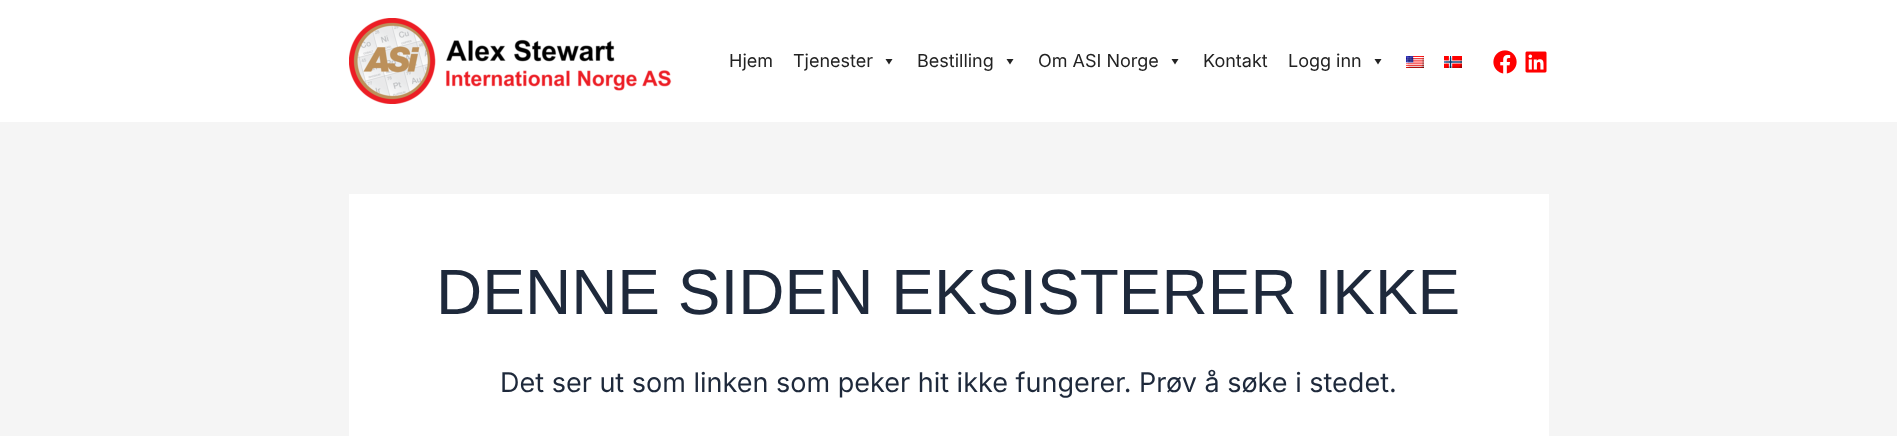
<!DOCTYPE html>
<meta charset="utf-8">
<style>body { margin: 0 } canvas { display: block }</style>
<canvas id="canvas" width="1897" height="436"></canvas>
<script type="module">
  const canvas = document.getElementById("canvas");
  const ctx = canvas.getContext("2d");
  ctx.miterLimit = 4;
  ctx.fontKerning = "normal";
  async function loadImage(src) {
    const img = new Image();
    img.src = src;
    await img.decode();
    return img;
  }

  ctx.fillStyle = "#f5f5f5";
  ctx.fillRect(0, 0, 1897, 436);
  ctx.fillStyle = "#ffffff";
  ctx.fillRect(0, 0, 1897, 122);
  ctx.drawImage(await loadImage("img1.png"), 349, 18, 323, 86);
  ctx.font = "18px Inter";
  ctx.fillStyle = "#222222";
  ctx.fillText("Hjem", 729, 67);
  ctx.fillText("Tjenester", 793, 67);
  ctx.beginPath();
  ctx.moveTo(892.5, 59);
  ctx.lineTo(889, 64.5);
  ctx.lineTo(885.5, 59);
  ctx.closePath();
  ctx.fill();
  ctx.fillText("Bestilling", 917, 67);
  ctx.beginPath();
  ctx.moveTo(1013.5, 59);
  ctx.lineTo(1010, 64.5);
  ctx.lineTo(1006.5, 59);
  ctx.closePath();
  ctx.fill();
  ctx.fillText("Om ASI Norge", 1038, 67);
  ctx.beginPath();
  ctx.moveTo(1178.5, 59);
  ctx.lineTo(1175, 64.5);
  ctx.lineTo(1171.5, 59);
  ctx.closePath();
  ctx.fill();
  ctx.fillText("Kontakt", 1203, 67);
  ctx.fillText("Logg inn", 1288, 67);
  ctx.beginPath();
  ctx.moveTo(1381.5, 59);
  ctx.lineTo(1378, 64.5);
  ctx.lineTo(1374.5, 59);
  ctx.closePath();
  ctx.fill();
  ctx.drawImage(await loadImage("img2.png"), 1406, 56, 18, 12);
  ctx.drawImage(await loadImage("img3.png"), 1444, 56, 18, 12);
  ctx.drawImage(await loadImage("img4.png"), 1493, 50, 24, 24);
  ctx.drawImage(await loadImage("img5.png"), 1525, 51, 22, 22);
  ctx.fillStyle = "#ffffff";
  ctx.fillRect(349, 194, 1200, 242);
  ctx.font = "64px Liberation Sans";
  ctx.fillStyle = "#1e293b";
  ctx.fillText("DENNE SIDEN EKSISTERER IKKE", 436, 314);
  ctx.font = "27px Inter";
  ctx.fillText("Det ser ut som linken som peker hit ikke fungerer. Prøv å søke i stedet.", 500, 392);
</script>
